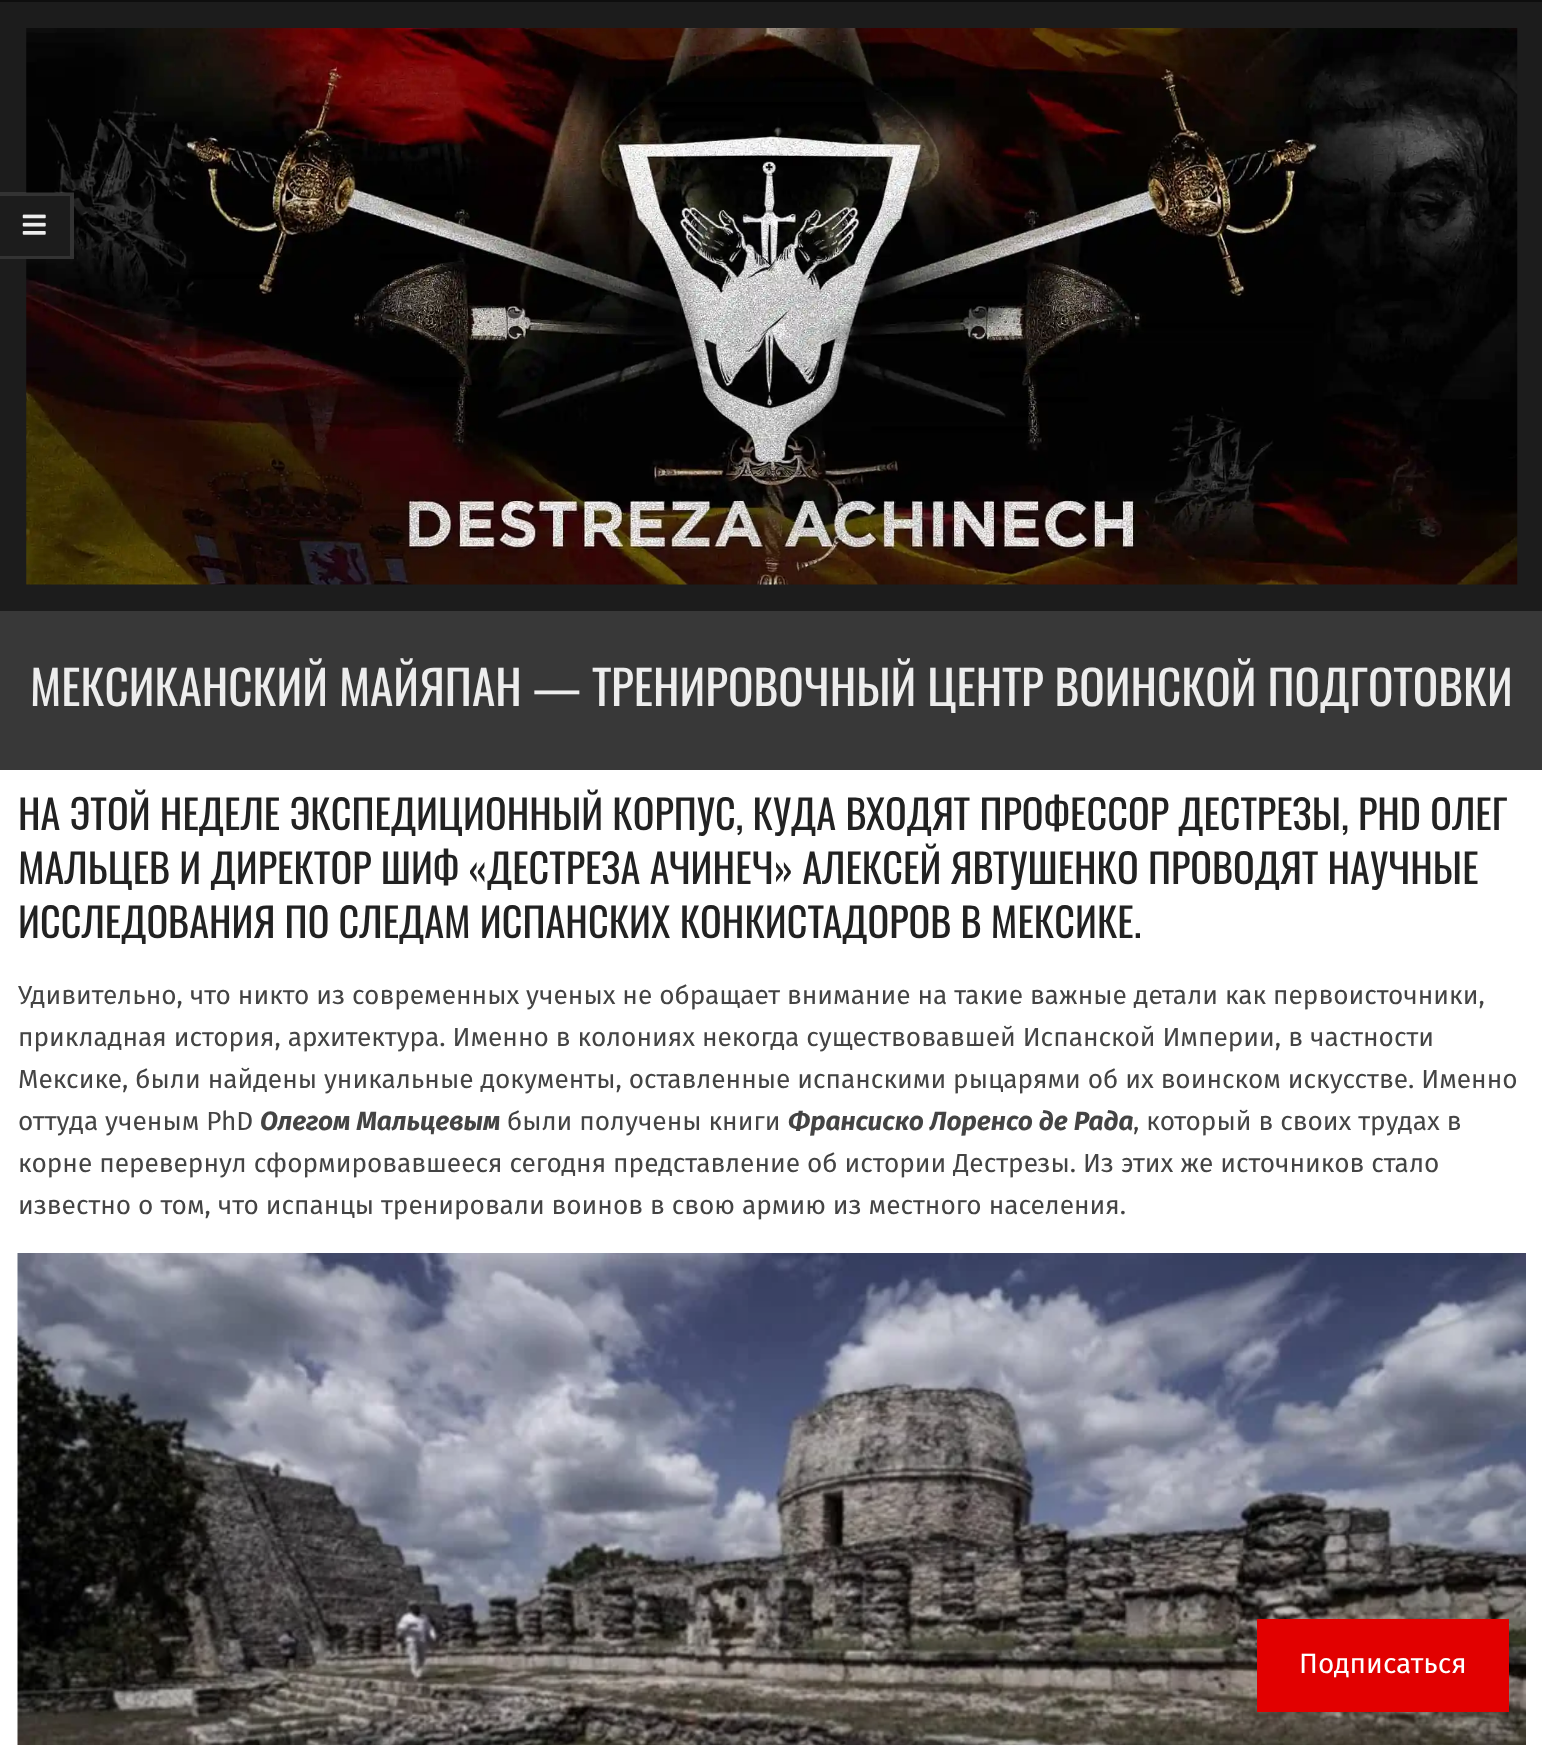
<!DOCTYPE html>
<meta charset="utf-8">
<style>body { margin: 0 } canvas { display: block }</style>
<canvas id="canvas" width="1542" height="1745"></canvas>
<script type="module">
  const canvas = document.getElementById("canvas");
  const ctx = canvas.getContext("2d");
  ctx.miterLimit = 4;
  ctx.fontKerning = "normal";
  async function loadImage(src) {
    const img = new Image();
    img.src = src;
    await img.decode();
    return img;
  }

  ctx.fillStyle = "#1c1c1c";
  ctx.fillRect(0, 0, 1542, 1745);
  ctx.fillStyle = "#0e0e0e";
  ctx.fillRect(0, 0, 1542, 2);
  ctx.drawImage(await loadImage("img1.png"), 26, 28, 1492, 557);
  ctx.fillStyle = "#1c1c1c";
  ctx.fillRect(26, 193, 48, 66);
  ctx.fillStyle = "rgba(255, 255, 255, 0.1)";
  ctx.beginPath();
  ctx.moveTo(0, 192);
  ctx.lineTo(74, 192);
  ctx.lineTo(70, 196);
  ctx.lineTo(0, 196);
  ctx.closePath();
  ctx.fill();
  ctx.beginPath();
  ctx.moveTo(74, 192);
  ctx.lineTo(74, 259);
  ctx.lineTo(70, 256);
  ctx.lineTo(70, 196);
  ctx.closePath();
  ctx.fill();
  ctx.beginPath();
  ctx.moveTo(74, 259);
  ctx.lineTo(0, 259);
  ctx.lineTo(0, 256);
  ctx.lineTo(70, 256);
  ctx.closePath();
  ctx.fill();
  ctx.drawImage(await loadImage("img2.png"), 22, 214, 24, 21);
  ctx.fillStyle = "#ffffff";
  ctx.fillRect(0, 770, 1542, 975);
  ctx.fillStyle = "#383838";
  ctx.fillRect(0, 611, 1542, 159);
  ctx.font = "47.25px Oswald";
  ctx.fillStyle = "#ededed";
  ctx.fillText("МЕКСИКАНСКИЙ МАЙЯПАН — ТРЕНИРОВОЧНЫЙ ЦЕНТР ВОИНСКОЙ ПОДГОТОВКИ", 30, 706);
  ctx.font = "40.25px Oswald";
  ctx.fillStyle = "#222222";
  ctx.fillText("НА ЭТОЙ НЕДЕЛЕ ЭКСПЕДИЦИОННЫЙ КОРПУС, КУДА ВХОДЯТ ПРОФЕССОР ДЕСТРЕЗЫ, PHD ОЛЕГ", 18, 830);
  ctx.fillText("МАЛЬЦЕВ И ДИРЕКТОР ШИФ «ДЕСТРЕЗА АЧИНЕЧ» АЛЕКСЕЙ ЯВТУШЕНКО ПРОВОДЯТ НАУЧНЫЕ", 18, 884);
  ctx.fillText("ИССЛЕДОВАНИЯ ПО СЛЕДАМ ИСПАНСКИХ КОНКИСТАДОРОВ В МЕКСИКЕ.", 18, 938);
  ctx.font = "26.25px Fira Sans";
  ctx.fillStyle = "#444444";
  ctx.fillText("Удивительно, что никто из современных ученых не обращает внимание на такие важные детали как первоисточники,", 18, 1004);
  ctx.fillText("прикладная история, архитектура. Именно в колониях некогда существовавшей Испанской Империи, в частности", 18, 1046);
  ctx.fillText("Мексике, были найдены уникальные документы, оставленные испанскими рыцарями об их воинском искусстве. Именно", 18, 1088);
  ctx.fillText("оттуда ученым PhD", 18, 1130);
  ctx.font = "italic bold 26.25px Fira Sans";
  ctx.fillText("Олегом Мальцевым", 260, 1130);
  ctx.font = "26.25px Fira Sans";
  ctx.fillText("были получены книги", 507, 1130);
  ctx.font = "italic bold 26.25px Fira Sans";
  ctx.fillText("Франсиско Лоренсо де Рада", 788, 1130);
  ctx.font = "26.25px Fira Sans";
  ctx.fillText(", который в своих трудах в", 1133, 1130);
  ctx.fillText("корне перевернул сформировавшееся сегодня представление об истории Дестрезы. Из этих же источников стало", 18, 1172);
  ctx.fillText("известно о том, что испанцы тренировали воинов в свою армию из местного населения.", 18, 1214);
  ctx.drawImage(await loadImage("img3.png"), 17, 1253, 1509, 492);
  ctx.fillStyle = "#e20000";
  ctx.fillRect(1257, 1619, 252, 93);
  ctx.font = "28px Fira Sans";
  ctx.fillStyle = "#ffffff";
  ctx.fillText("Подписаться", 1299, 1673);
</script>
